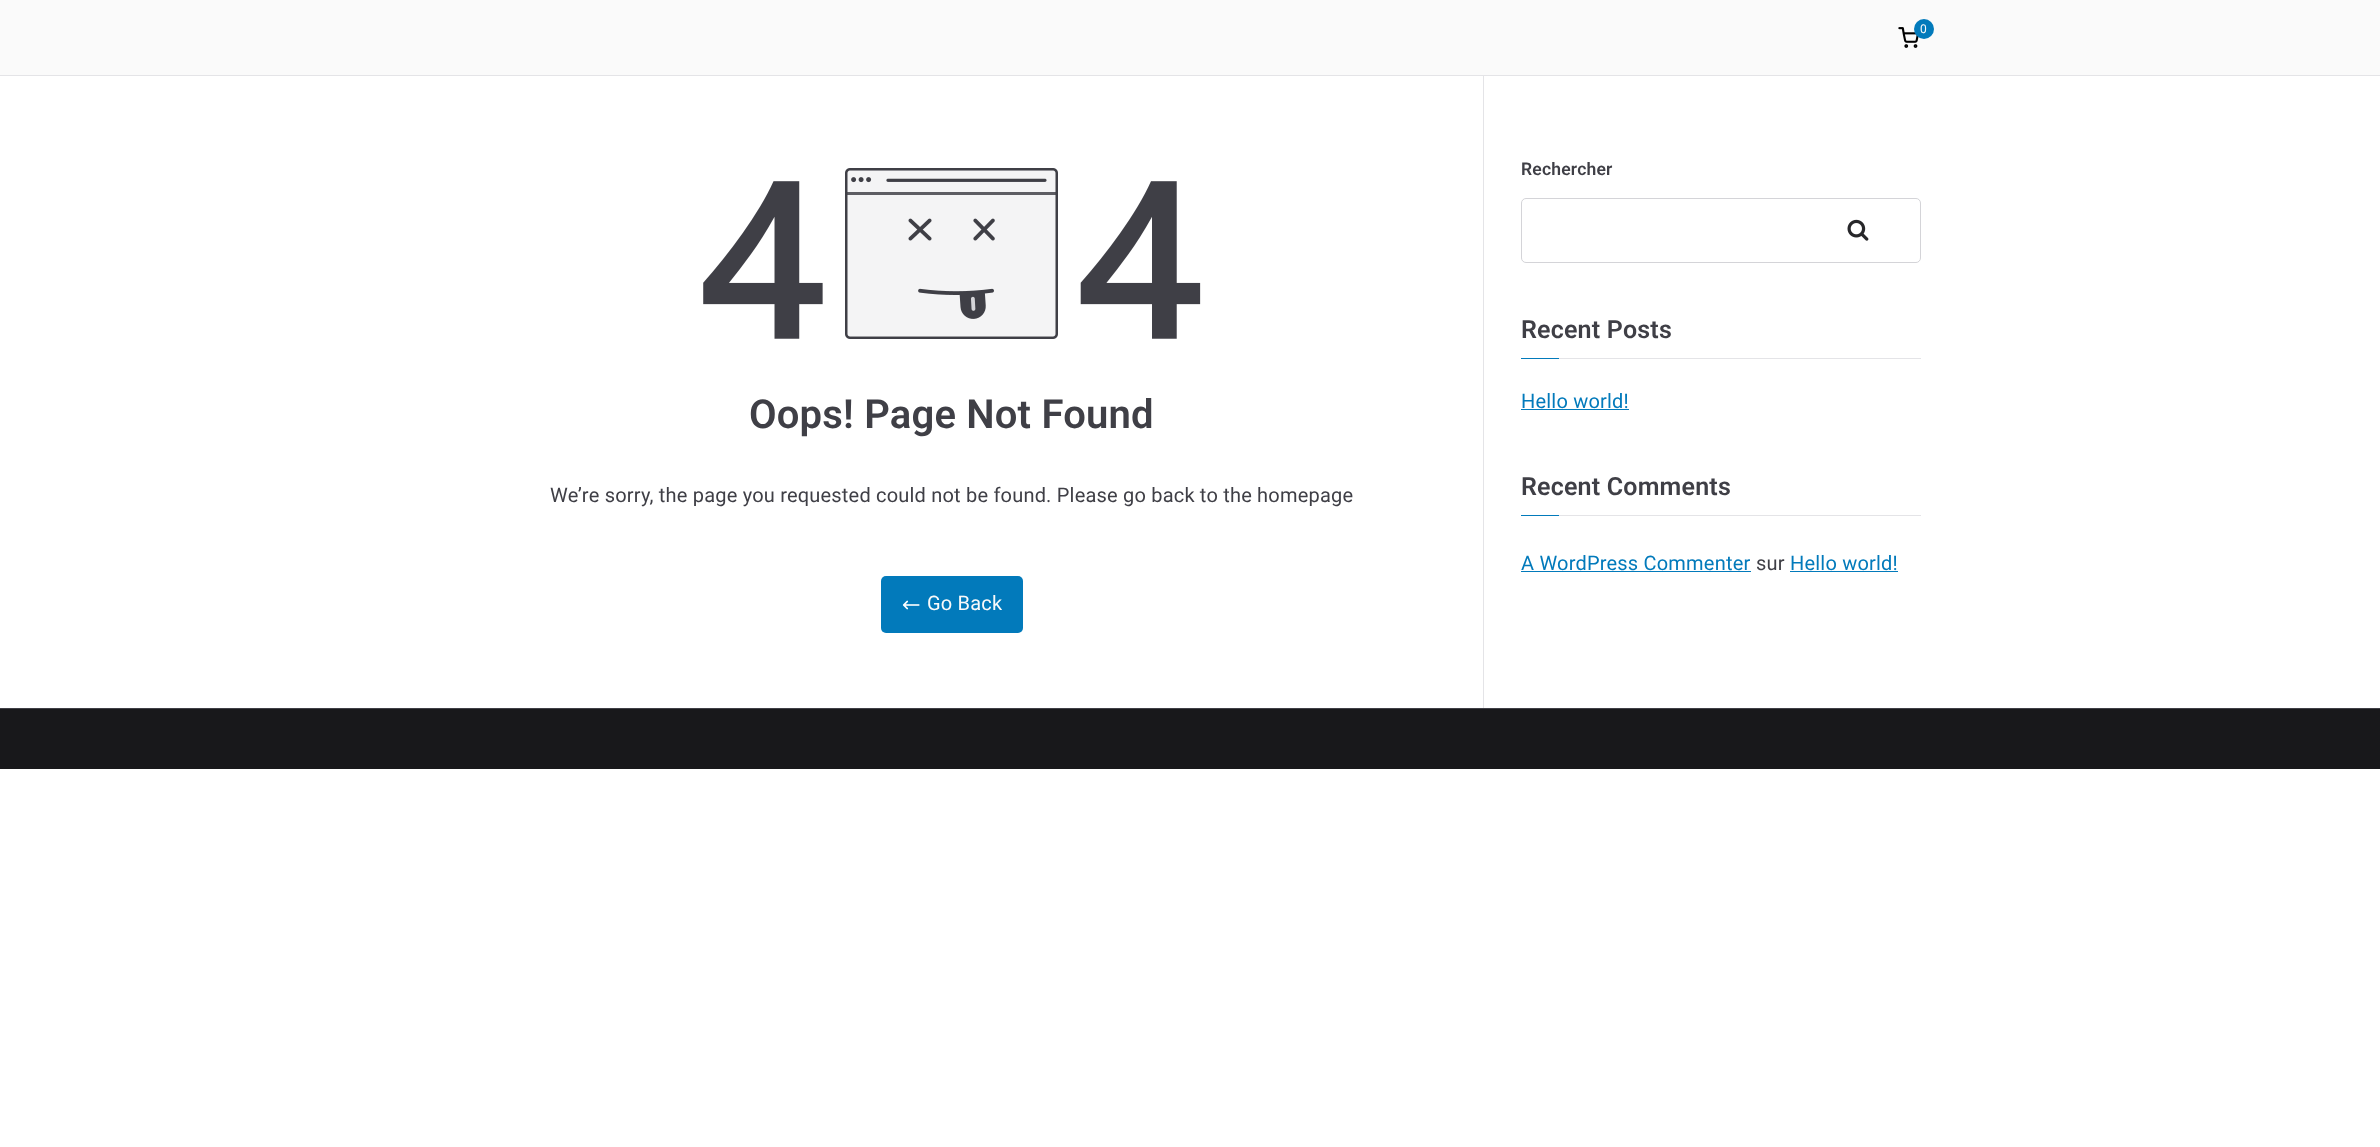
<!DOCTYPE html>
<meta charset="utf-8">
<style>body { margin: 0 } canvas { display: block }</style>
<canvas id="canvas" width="2380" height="1147"></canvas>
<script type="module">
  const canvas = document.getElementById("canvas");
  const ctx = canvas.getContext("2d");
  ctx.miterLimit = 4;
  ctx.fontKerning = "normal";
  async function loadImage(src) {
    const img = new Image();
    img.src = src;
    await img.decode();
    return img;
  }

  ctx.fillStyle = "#ffffff";
  ctx.fillRect(0, 0, 2380, 1147);
  ctx.fillStyle = "#fafafa";
  ctx.fillRect(0, 0, 2380, 75);
  ctx.fillStyle = "#e4e4e7";
  ctx.fillRect(0, 75, 2380, 1);
  ctx.drawImage(await loadImage("img1.png"), 1898, 27, 21, 21);
  ctx.fillStyle = "#027abb";
  ctx.beginPath();
  ctx.arc(1924, 29, 10, 0, Math.PI * 2);
  ctx.fill();
  ctx.letterSpacing = "0.2px";
  ctx.font = "12px Roboto";
  ctx.fillStyle = "#fafafa";
  ctx.fillText("0", 1920, 33);
  ctx.drawImage(await loadImage("img2.png"), 703, 168, 498, 171);
  ctx.font = "600 40px Roboto";
  ctx.fillStyle = "#3f3f46";
  ctx.fillText("Oops! Page Not Found", 749, 428);
  ctx.font = "20px Roboto";
  ctx.fillText("We’re sorry, the page you requested could not be found. Please go back to the homepage", 550, 502);
  ctx.fillStyle = "#027abb";
  ctx.beginPath();
  ctx.roundRect(881, 576, 142, 57, 5);
  ctx.fill();
  ctx.drawImage(await loadImage("img3.png"), 902, 600, 18, 10);
  ctx.fillStyle = "#fafafa";
  ctx.fillText("Go Back", 927, 610);
  ctx.fillStyle = "#e4e4e7";
  ctx.fillRect(1483, 76, 1, 632);
  ctx.font = "600 17.5px Roboto";
  ctx.fillStyle = "#3f3f46";
  ctx.fillText("Rechercher", 1521, 175);
  ctx.beginPath();
  ctx.roundRect(1521.5, 198.5, 399, 64, 4.5);
  ctx.strokeStyle = "#d4d4d8";
  ctx.stroke();
  ctx.drawImage(await loadImage("img4.png"), 1847, 219, 22, 22);
  ctx.fillStyle = "#e4e4e7";
  ctx.fillRect(1559, 358, 362, 1);
  ctx.font = "600 25px Roboto";
  ctx.fillStyle = "#3f3f46";
  ctx.fillText("Recent Posts", 1521, 338);
  ctx.fillStyle = "#027abb";
  ctx.fillRect(1521, 358, 38, 1);
  ctx.font = "20px Roboto";
  ctx.fillText("Hello world!", 1521, 408);
  ctx.fillRect(1521, 409, 108, 1);
  ctx.fillStyle = "#e4e4e7";
  ctx.fillRect(1559, 515, 362, 1);
  ctx.font = "600 25px Roboto";
  ctx.fillStyle = "#3f3f46";
  ctx.fillText("Recent Comments", 1521, 495);
  ctx.fillStyle = "#027abb";
  ctx.fillRect(1521, 515, 38, 1);
  ctx.font = "20px Roboto";
  ctx.fillText("A WordPress Commenter", 1521, 570);
  ctx.fillRect(1521, 571, 230, 1);
  ctx.fillStyle = "#3f3f46";
  ctx.fillText("sur", 1756, 570);
  ctx.fillStyle = "#027abb";
  ctx.fillText("Hello world!", 1790, 570);
  ctx.fillRect(1790, 571, 108, 1);
  ctx.fillStyle = "#18181b";
  ctx.fillRect(0, 709, 2380, 60);
  ctx.fillStyle = "#3f3f46";
  ctx.fillRect(0, 708, 2380, 1);
</script>
